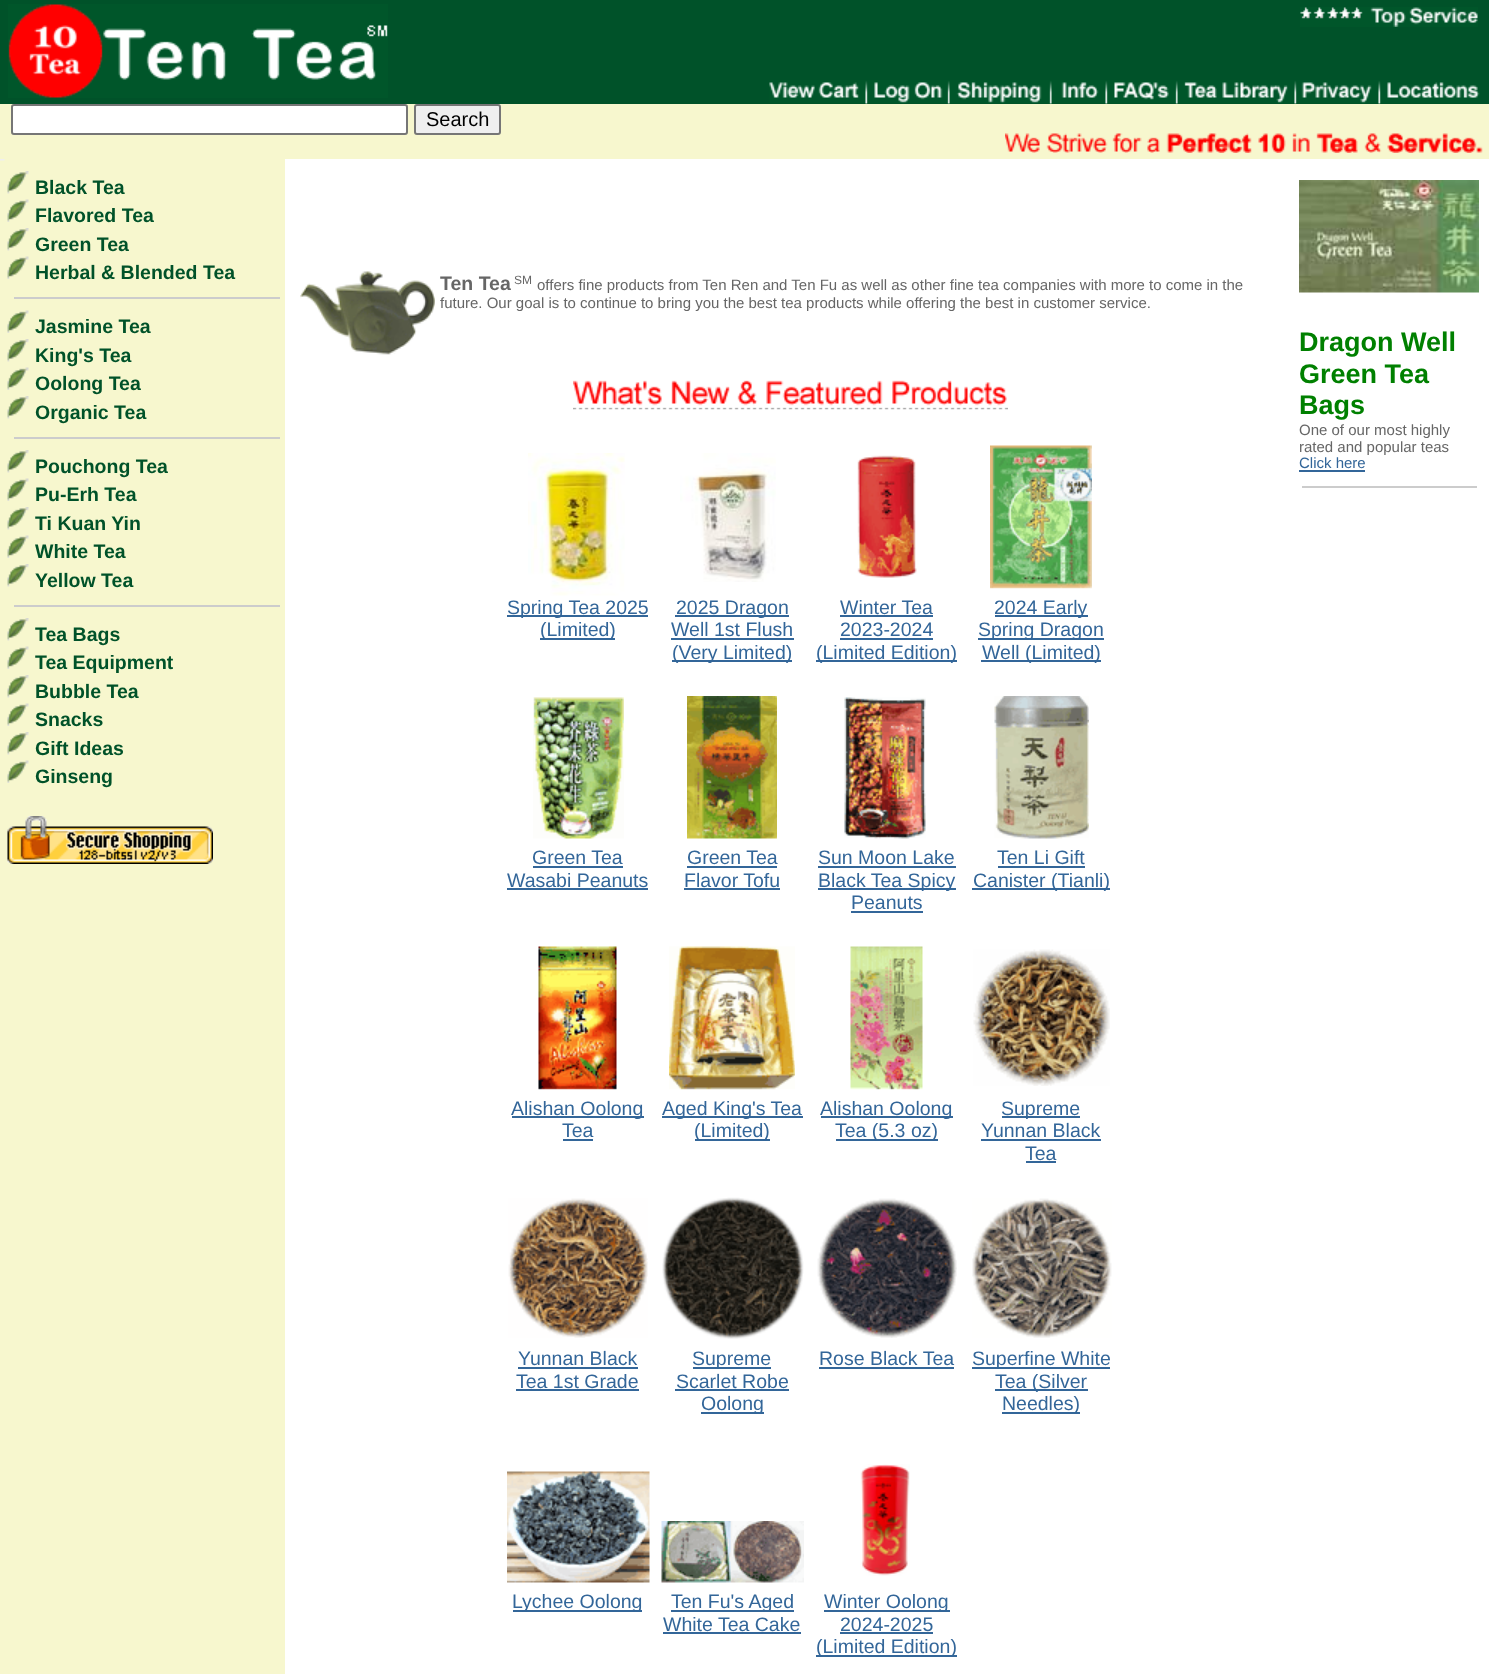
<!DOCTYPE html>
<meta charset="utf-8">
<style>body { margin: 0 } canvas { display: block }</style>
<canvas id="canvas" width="1489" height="1674"></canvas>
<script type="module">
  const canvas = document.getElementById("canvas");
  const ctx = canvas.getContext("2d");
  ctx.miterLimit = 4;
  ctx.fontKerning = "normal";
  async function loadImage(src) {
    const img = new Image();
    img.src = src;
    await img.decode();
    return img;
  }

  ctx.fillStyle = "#ffffff";
  ctx.fillRect(0, 0, 1489, 1674);
  ctx.fillStyle = "#005229";
  ctx.fillRect(0, 0, 524, 104);
  ctx.drawImage(await loadImage("img1.png"), 8, 4, 380, 94);
  ctx.fillRect(524, 0, 965, 104);
  ctx.drawImage(await loadImage("img2.png"), 1300, 7, 178, 20);
  ctx.drawImage(await loadImage("img3.png"), 769, 80, 711, 24);
  ctx.fillStyle = "#f7f7ce";
  ctx.fillRect(0, 104, 1489, 55);
  ctx.fillStyle = "#ffffff";
  ctx.beginPath();
  ctx.roundRect(12, 105, 395, 29, 2);
  ctx.fill();
  ctx.strokeStyle = "#767676";
  ctx.lineWidth = 2;
  ctx.stroke();
  ctx.fillStyle = "#efefef";
  ctx.beginPath();
  ctx.roundRect(415, 105, 85, 29, 2);
  ctx.fill();
  ctx.stroke();
  ctx.font = "20px Liberation Sans";
  ctx.fillStyle = "#000000";
  ctx.fillText("Search", 426, 126);
  ctx.drawImage(await loadImage("img4.png"), 1005, 133, 478, 20);
  ctx.fillStyle = "#f7f7ce";
  ctx.fillRect(0, 159, 285, 1515);
  ctx.drawImage(await loadImage("img5.png"), 0, 159, 5, 2);
  ctx.drawImage(await loadImage("img6.png"), 7, 171, 22, 23);
  ctx.font = "bold 19.5px Liberation Sans";
  ctx.fillStyle = "#005229";
  ctx.fillText("Black Tea", 35, 194);
  ctx.drawImage(await loadImage("img7.png"), 7, 199, 22, 23);
  ctx.fillText("Flavored Tea", 35, 222);
  ctx.drawImage(await loadImage("img6.png"), 7, 228, 22, 23);
  ctx.fillText("Green Tea", 35, 251);
  ctx.drawImage(await loadImage("img7.png"), 7, 256, 22, 23);
  ctx.fillText("Herbal & Blended Tea", 35, 279);
  ctx.fillStyle = "#cccccc";
  ctx.fillRect(14, 297, 266, 2);
  ctx.drawImage(await loadImage("img7.png"), 7, 310, 22, 23);
  ctx.fillStyle = "#005229";
  ctx.fillText("Jasmine Tea", 35, 333);
  ctx.drawImage(await loadImage("img6.png"), 7, 339, 22, 23);
  ctx.fillText("King's Tea", 35, 362);
  ctx.drawImage(await loadImage("img7.png"), 7, 367, 22, 23);
  ctx.fillText("Oolong Tea", 35, 390);
  ctx.drawImage(await loadImage("img6.png"), 7, 396, 22, 23);
  ctx.fillText("Organic Tea", 35, 419);
  ctx.fillStyle = "#cccccc";
  ctx.fillRect(14, 437, 266, 2);
  ctx.drawImage(await loadImage("img6.png"), 7, 450, 22, 23);
  ctx.fillStyle = "#005229";
  ctx.fillText("Pouchong Tea", 35, 473);
  ctx.drawImage(await loadImage("img7.png"), 7, 478, 22, 23);
  ctx.fillText("Pu-Erh Tea", 35, 501);
  ctx.drawImage(await loadImage("img6.png"), 7, 507, 22, 23);
  ctx.fillText("Ti Kuan Yin", 35, 530);
  ctx.drawImage(await loadImage("img7.png"), 7, 535, 22, 23);
  ctx.fillText("White Tea", 35, 558);
  ctx.drawImage(await loadImage("img6.png"), 7, 564, 22, 23);
  ctx.fillText("Yellow Tea", 35, 587);
  ctx.fillStyle = "#cccccc";
  ctx.fillRect(14, 605, 266, 2);
  ctx.drawImage(await loadImage("img6.png"), 7, 618, 22, 23);
  ctx.fillStyle = "#005229";
  ctx.fillText("Tea Bags", 35, 641);
  ctx.drawImage(await loadImage("img7.png"), 7, 646, 22, 23);
  ctx.fillText("Tea Equipment", 35, 669);
  ctx.drawImage(await loadImage("img6.png"), 7, 675, 22, 23);
  ctx.fillText("Bubble Tea", 35, 698);
  ctx.drawImage(await loadImage("img7.png"), 7, 703, 22, 23);
  ctx.fillText("Snacks", 35, 726);
  ctx.drawImage(await loadImage("img6.png"), 7, 732, 22, 23);
  ctx.fillText("Gift Ideas", 35, 755);
  ctx.drawImage(await loadImage("img7.png"), 7, 760, 22, 23);
  ctx.fillText("Ginseng", 35, 783);
  ctx.drawImage(await loadImage("img8.png"), 7, 816, 206, 48);
  ctx.drawImage(await loadImage("img9.png"), 300, 271, 135, 84);
  ctx.fillStyle = "#666666";
  ctx.fillText("Ten Tea", 440, 290);
  ctx.font = "12px Liberation Sans";
  ctx.fillText("SM", 514, 284);
  ctx.font = "15px Liberation Sans";
  ctx.fillText("offers fine products from Ten Ren and Ten Fu as well as other fine tea companies with more to come in the", 537, 290);
  ctx.fillText("future. Our goal is to continue to bring you the best tea products while offering the best in customer service.", 440, 308);
  ctx.drawImage(await loadImage("img10.png"), 573, 380, 435, 30);
  ctx.fillStyle = "rgba(255, 255, 255, 0.5)";
  ctx.fillRect(573, 409, 435, 1);
  ctx.drawImage(await loadImage("img11.png"), 528, 453, 97, 143);
  ctx.drawImage(await loadImage("img12.png"), 680, 453, 96, 129);
  ctx.drawImage(await loadImage("img13.png"), 857, 455, 60, 123);
  ctx.drawImage(await loadImage("img14.png"), 990, 445, 102, 144);
  ctx.fillStyle = "#336699";
  ctx.fillRect(507, 615, 141, 2);
  ctx.font = "19.5px Liberation Sans";
  ctx.fillText("Spring Tea 2025", 507, 614);
  ctx.fillRect(540, 638, 75, 2);
  ctx.fillText("(Limited)", 540, 636);
  ctx.fillRect(675, 615, 114, 2);
  ctx.fillText("2025 Dragon", 676, 614);
  ctx.fillText("Well 1st Flush", 671, 636);
  ctx.fillRect(671, 638, 123, 2);
  ctx.fillRect(672, 660, 120, 2);
  ctx.fillText("(Very Limited)", 672, 659);
  ctx.fillText("Winter Tea", 840, 614);
  ctx.fillRect(840, 615, 93, 2);
  ctx.fillText("2023-2024", 840, 636);
  ctx.fillRect(840, 638, 93, 2);
  ctx.fillRect(816, 660, 141, 2);
  ctx.fillText("(Limited Edition)", 816, 659);
  ctx.fillRect(995, 615, 93, 2);
  ctx.fillText("2024 Early", 994, 614);
  ctx.fillRect(978, 638, 126, 2);
  ctx.fillText("Spring Dragon", 978, 636);
  ctx.fillRect(981, 660, 120, 2);
  ctx.fillText("Well (Limited)", 982, 659);
  ctx.drawImage(await loadImage("img15.png"), 533, 697, 91, 142);
  ctx.drawImage(await loadImage("img16.png"), 687, 696, 90, 143);
  ctx.drawImage(await loadImage("img17.png"), 844, 697, 82, 142);
  ctx.drawImage(await loadImage("img18.png"), 994, 696, 95, 143);
  ctx.fillText("Green Tea", 532, 864);
  ctx.fillRect(533, 866, 90, 2);
  ctx.fillText("Wasabi Peanuts", 507, 887);
  ctx.fillRect(507, 888, 141, 2);
  ctx.fillText("Green Tea", 687, 864);
  ctx.fillRect(687, 866, 90, 2);
  ctx.fillText("Flavor Tofu", 684, 887);
  ctx.fillRect(684, 888, 96, 2);
  ctx.fillText("Sun Moon Lake", 818, 864);
  ctx.fillRect(818, 866, 138, 2);
  ctx.fillRect(818, 888, 138, 2);
  ctx.fillText("Black Tea Spicy", 818, 887);
  ctx.fillText("Peanuts", 851, 909);
  ctx.fillRect(851, 911, 72, 2);
  ctx.fillText("Ten Li Gift", 997, 864);
  ctx.fillRect(998, 866, 87, 2);
  ctx.fillRect(972, 888, 138, 2);
  ctx.fillText("Canister (Tianli)", 973, 887);
  ctx.drawImage(await loadImage("img19.png"), 538, 946, 79, 144);
  ctx.drawImage(await loadImage("img20.png"), 669, 946, 126, 144);
  ctx.drawImage(await loadImage("img21.png"), 850, 946, 73, 144);
  ctx.drawImage(await loadImage("img22.png"), 973, 949, 137, 137);
  ctx.fillRect(512, 1116, 132, 2);
  ctx.fillText("Alishan Oolong", 511, 1115);
  ctx.fillText("Tea", 562, 1137);
  ctx.fillRect(563, 1139, 30, 2);
  ctx.fillRect(662, 1116, 141, 2);
  ctx.fillText("Aged King's Tea", 662, 1115);
  ctx.fillRect(695, 1139, 75, 2);
  ctx.fillText("(Limited)", 694, 1137);
  ctx.fillRect(821, 1116, 132, 2);
  ctx.fillText("Alishan Oolong", 820, 1115);
  ctx.fillRect(836, 1139, 102, 2);
  ctx.fillText("Tea (5.3 oz)", 835, 1137);
  ctx.fillRect(1002, 1116, 78, 2);
  ctx.fillText("Supreme", 1001, 1115);
  ctx.fillText("Yunnan Black", 981, 1137);
  ctx.fillRect(981, 1139, 120, 2);
  ctx.fillText("Tea", 1025, 1160);
  ctx.fillRect(1026, 1161, 30, 2);
  ctx.drawImage(await loadImage("img23.png"), 508, 1198, 140, 140);
  ctx.drawImage(await loadImage("img24.png"), 662, 1197, 142, 142);
  ctx.drawImage(await loadImage("img25.png"), 817, 1198, 140, 140);
  ctx.drawImage(await loadImage("img26.png"), 972, 1198, 140, 140);
  ctx.fillText("Yunnan Black", 518, 1365);
  ctx.fillRect(518, 1367, 120, 2);
  ctx.fillText("Tea 1st Grade", 516, 1388);
  ctx.fillRect(516, 1389, 123, 2);
  ctx.fillRect(693, 1367, 78, 2);
  ctx.fillText("Supreme", 692, 1365);
  ctx.fillText("Scarlet Robe", 676, 1388);
  ctx.fillRect(675, 1389, 114, 2);
  ctx.fillRect(701, 1412, 63, 2);
  ctx.fillText("Oolong", 701, 1410);
  ctx.fillText("Rose Black Tea", 819, 1365);
  ctx.fillRect(819, 1367, 135, 2);
  ctx.fillRect(972, 1367, 138, 2);
  ctx.fillText("Superfine White", 972, 1365);
  ctx.fillRect(995, 1389, 93, 2);
  ctx.fillText("Tea (Silver", 995, 1388);
  ctx.fillRect(1002, 1412, 78, 2);
  ctx.fillText("Needles)", 1002, 1410);
  ctx.drawImage(await loadImage("img27.png"), 507, 1471, 143, 112);
  ctx.drawImage(await loadImage("img28.png"), 661, 1521, 143, 62);
  ctx.drawImage(await loadImage("img29.png"), 860, 1464, 50, 112);
  ctx.fillRect(513, 1610, 129, 2);
  ctx.fillText("Lychee Oolong", 512, 1608);
  ctx.fillRect(671, 1610, 123, 2);
  ctx.fillText("Ten Fu's Aged", 671, 1608);
  ctx.fillText("White Tea Cake", 663, 1631);
  ctx.fillRect(663, 1632, 138, 2);
  ctx.fillRect(824, 1610, 126, 2);
  ctx.fillText("Winter Oolong", 824, 1608);
  ctx.fillText("2024-2025", 840, 1631);
  ctx.fillRect(840, 1632, 93, 2);
  ctx.fillRect(816, 1655, 141, 2);
  ctx.fillText("(Limited Edition)", 816, 1653);
  ctx.drawImage(await loadImage("img30.png"), 1299, 180, 180, 113);
  ctx.font = "bold 27px Liberation Sans";
  ctx.fillStyle = "#008000";
  ctx.fillText("Dragon Well", 1299, 351);
  ctx.fillText("Green Tea", 1299, 383);
  ctx.fillText("Bags", 1299, 414);
  ctx.font = "15px Liberation Sans";
  ctx.fillStyle = "#666666";
  ctx.fillText("One of our most highly", 1299, 435);
  ctx.fillText("rated and popular teas", 1299, 452);
  ctx.fillStyle = "#336699";
  ctx.fillText("Click here", 1299, 468);
  ctx.fillRect(1299, 470, 66, 2);
  ctx.fillStyle = "#cccccc";
  ctx.fillRect(1302, 486, 175, 2);
</script>
